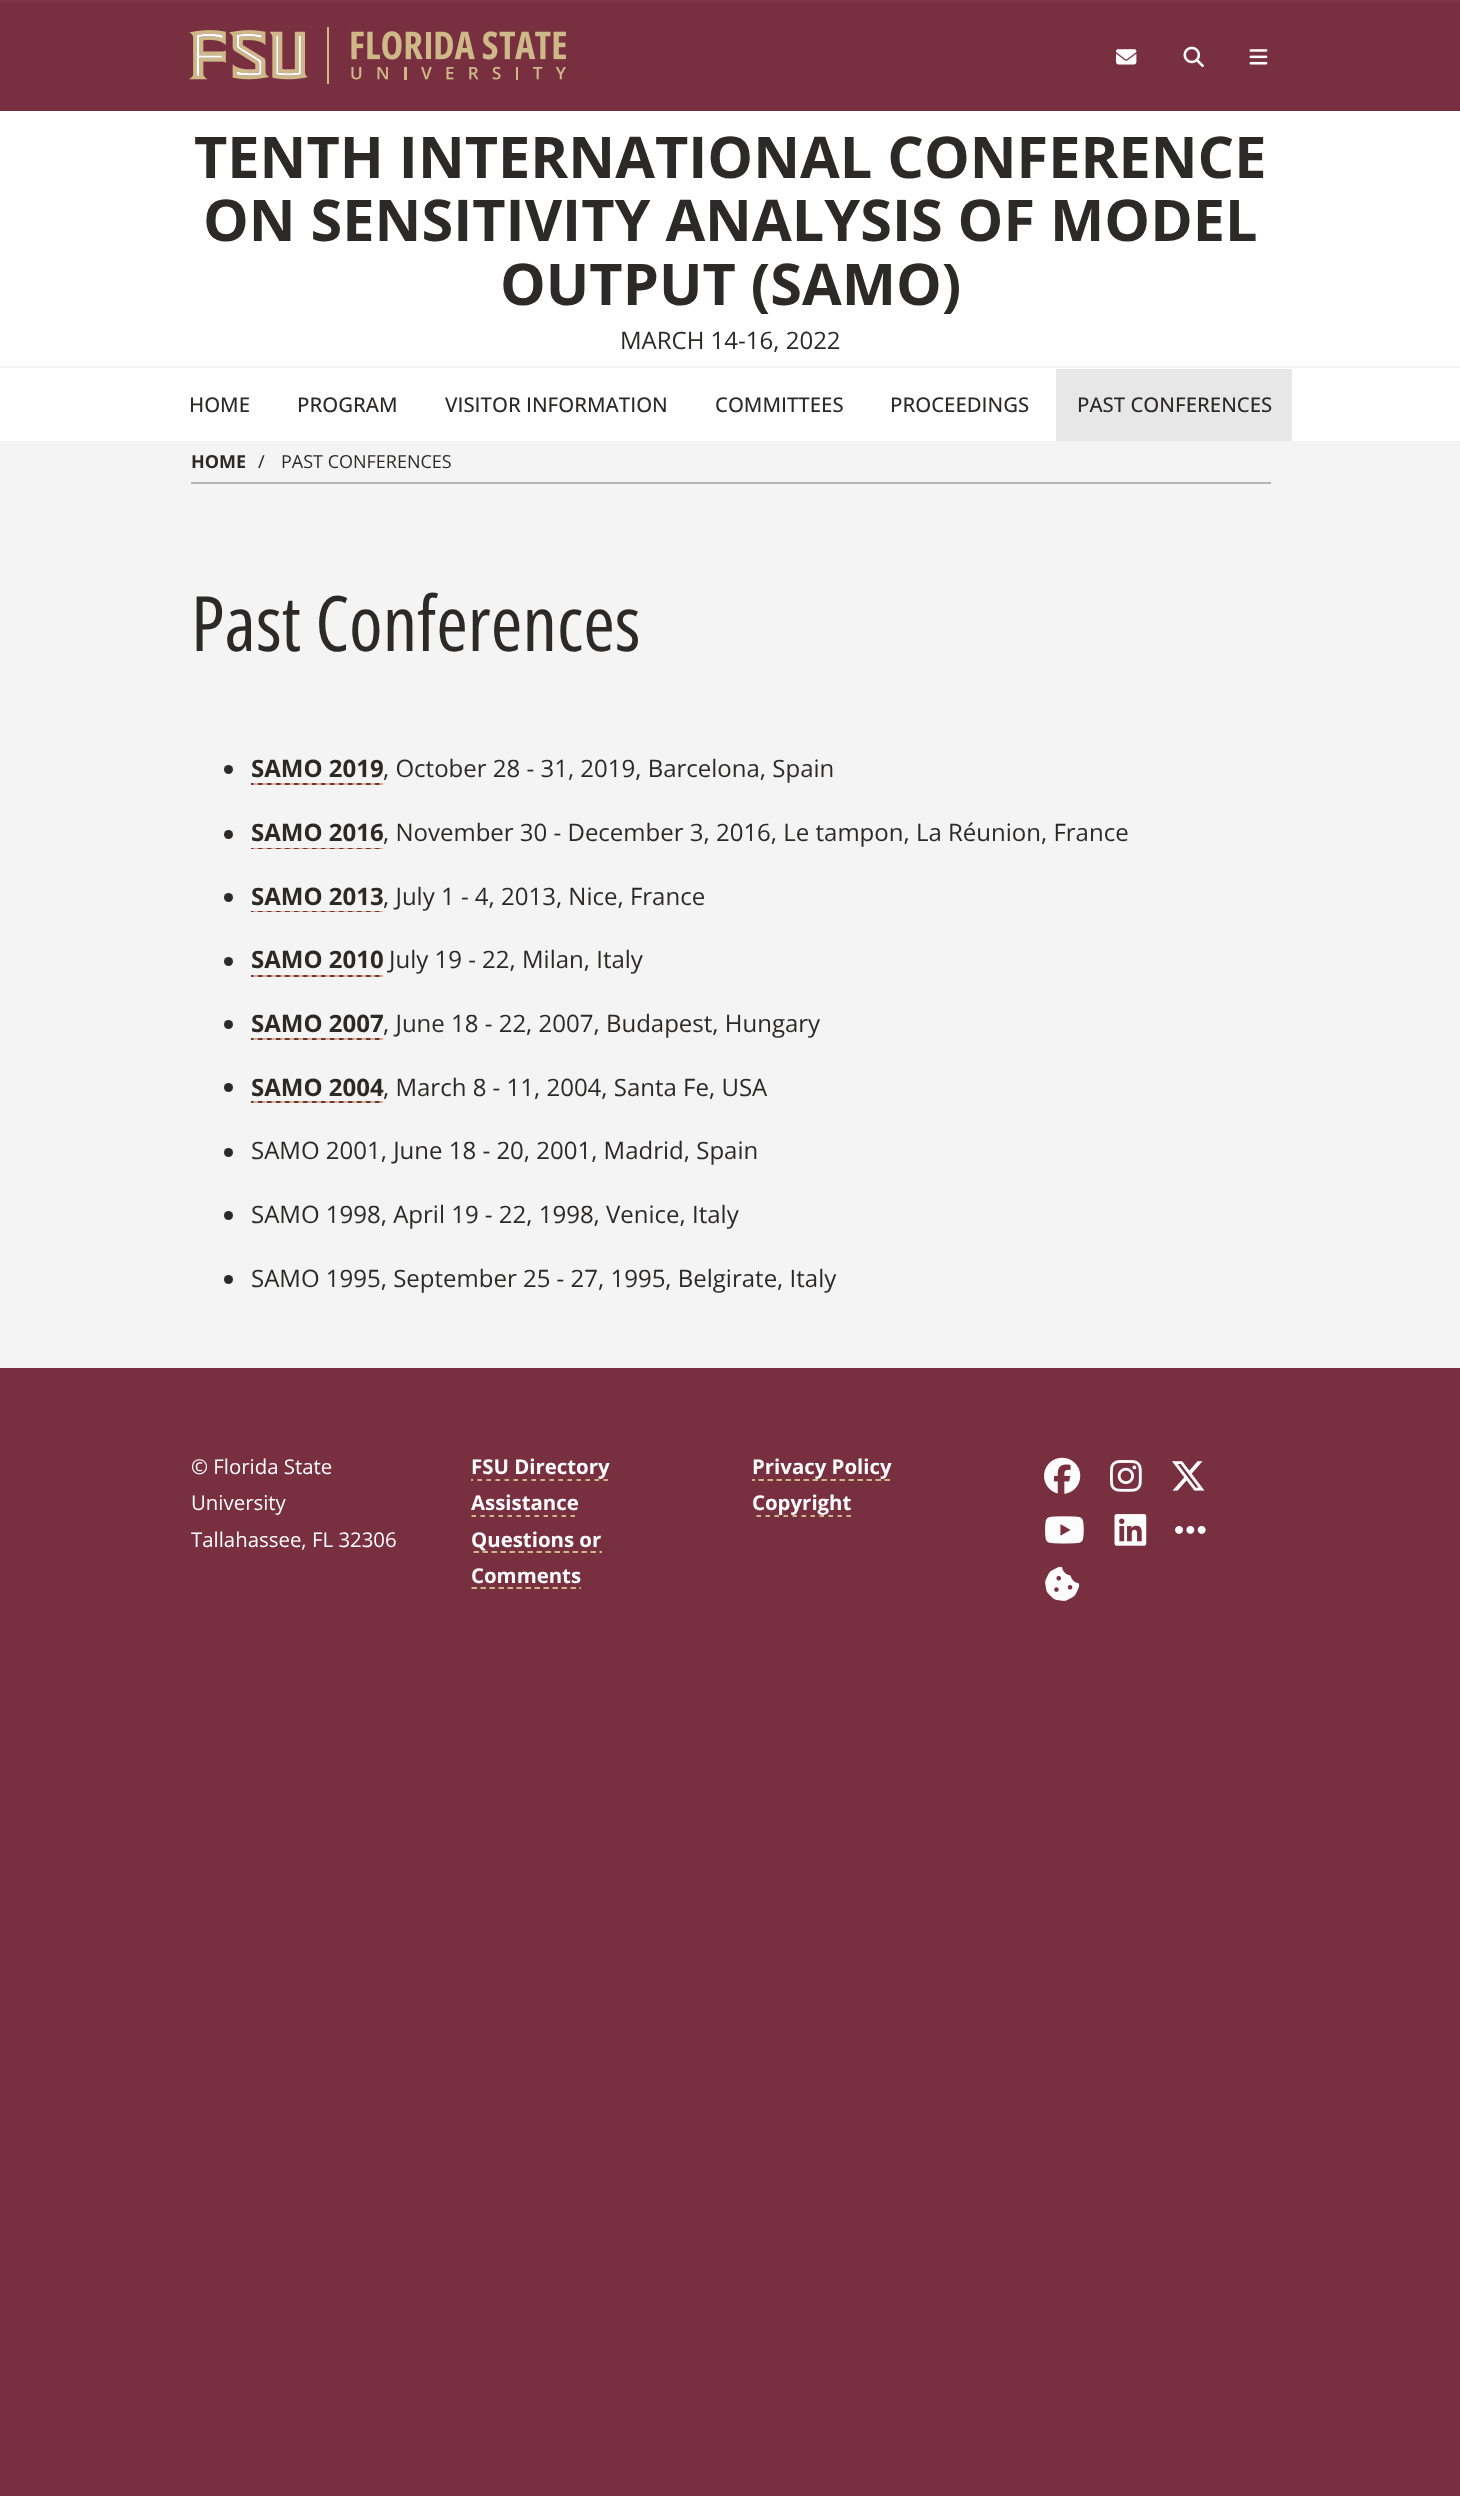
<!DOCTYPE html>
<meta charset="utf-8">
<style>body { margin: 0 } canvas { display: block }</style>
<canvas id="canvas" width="1460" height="2496"></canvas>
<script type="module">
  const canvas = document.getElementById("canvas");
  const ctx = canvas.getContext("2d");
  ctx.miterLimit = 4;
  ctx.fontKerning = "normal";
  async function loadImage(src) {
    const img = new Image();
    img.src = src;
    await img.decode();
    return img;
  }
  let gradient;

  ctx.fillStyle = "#782f40";
  ctx.fillRect(0, 0, 1460, 2496);
  ctx.fillStyle = "#7c3546";
  ctx.fillRect(0, 0, 1460, 2);
  ctx.fillStyle = "#722d3d";
  ctx.fillRect(0, 110, 1460, 1);
  ctx.drawImage(await loadImage("img1.png"), 189, 27, 377, 57);
  ctx.drawImage(await loadImage("img2.png"), 1116, 49, 21, 16);
  ctx.drawImage(await loadImage("img3.png"), 1183, 46, 21, 21);
  ctx.drawImage(await loadImage("img4.png"), 1249, 49, 19, 16);
  ctx.fillStyle = "#ffffff";
  ctx.fillRect(0, 111, 1460, 255);
  ctx.fillStyle = "#f3f2f2";
  ctx.fillRect(0, 366, 1460, 2);
  ctx.font = "bold 57.6px Open Sans";
  ctx.fillStyle = "#2c2a29";
  ctx.fillText("TENTH INTERNATIONAL CONFERENCE", 194, 178);
  ctx.fillText("ON SENSITIVITY ANALYSIS OF MODEL", 203, 241);
  ctx.fillText("OUTPUT (SAMO)", 500, 305);
  ctx.font = "24px Open Sans";
  ctx.fillText("MARCH 14-16, 2022", 620, 349);
  ctx.fillStyle = "#ffffff";
  ctx.fillRect(0, 368, 1460, 73);
  ctx.font = "500 20.4px Open Sans";
  ctx.fillStyle = "#2c2a29";
  ctx.fillText("HOME", 189, 412);
  ctx.fillText("PROGRAM", 297, 412);
  ctx.fillText("VISITOR INFORMATION", 445, 412);
  ctx.fillText("COMMITTEES", 715, 412);
  ctx.fillText("PROCEEDINGS", 890, 412);
  ctx.fillStyle = "#e7e7e7";
  ctx.fillRect(1056, 369, 236, 72);
  ctx.fillStyle = "#2c2a29";
  ctx.fillText("PAST CONFERENCES", 1077, 412);
  ctx.fillStyle = "#f4f4f4";
  ctx.fillRect(0, 441, 1460, 927);
  ctx.font = "bold 18px Open Sans";
  ctx.fillStyle = "#2c2a29";
  ctx.fillText("HOME", 191, 468);
  ctx.font = "18px 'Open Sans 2'";
  ctx.fillText("/", 258, 468);
  ctx.font = "18px Open Sans";
  ctx.fillText("PAST CONFERENCES", 281, 468);
  ctx.fillStyle = "#b5b5b4";
  ctx.fillRect(191, 482, 1080, 2);
  ctx.font = "76.5px 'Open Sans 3'";
  ctx.fillStyle = "#2c2a29";
  ctx.fillText("Past Conferences", 191, 651);
  ctx.beginPath();
  ctx.arc(228.5, 769.5, 4.5, 0, Math.PI * 2);
  ctx.fill();
  ctx.font = "bold 24px Open Sans";
  ctx.fillText("SAMO 2019", 251, 777);
  gradient = ctx.createLinearGradient(249, 784, 258, 784);
  gradient.addColorStop(0.4, "#782f40");
  gradient.addColorStop(0.6, "#ceb888");
  ctx.fillStyle = gradient;
  ctx.fillRect(251, 783, 7, 2);
  gradient = ctx.createLinearGradient(258, 784, 267, 784);
  gradient.addColorStop(0.4, "#782f40");
  gradient.addColorStop(0.6, "#ceb888");
  ctx.fillStyle = gradient;
  ctx.fillRect(258, 783, 9, 2);
  gradient = ctx.createLinearGradient(267, 784, 276, 784);
  gradient.addColorStop(0.4, "#782f40");
  gradient.addColorStop(0.6, "#ceb888");
  ctx.fillStyle = gradient;
  ctx.fillRect(267, 783, 9, 2);
  gradient = ctx.createLinearGradient(276, 784, 285, 784);
  gradient.addColorStop(0.4, "#782f40");
  gradient.addColorStop(0.6, "#ceb888");
  ctx.fillStyle = gradient;
  ctx.fillRect(276, 783, 9, 2);
  gradient = ctx.createLinearGradient(285, 784, 294, 784);
  gradient.addColorStop(0.4, "#782f40");
  gradient.addColorStop(0.6, "#ceb888");
  ctx.fillStyle = gradient;
  ctx.fillRect(285, 783, 9, 2);
  gradient = ctx.createLinearGradient(294, 784, 303, 784);
  gradient.addColorStop(0.4, "#782f40");
  gradient.addColorStop(0.6, "#ceb888");
  ctx.fillStyle = gradient;
  ctx.fillRect(294, 783, 9, 2);
  gradient = ctx.createLinearGradient(303, 784, 312, 784);
  gradient.addColorStop(0.4, "#782f40");
  gradient.addColorStop(0.6, "#ceb888");
  ctx.fillStyle = gradient;
  ctx.fillRect(303, 783, 9, 2);
  gradient = ctx.createLinearGradient(312, 784, 321, 784);
  gradient.addColorStop(0.4, "#782f40");
  gradient.addColorStop(0.6, "#ceb888");
  ctx.fillStyle = gradient;
  ctx.fillRect(312, 783, 9, 2);
  gradient = ctx.createLinearGradient(321, 784, 330, 784);
  gradient.addColorStop(0.4, "#782f40");
  gradient.addColorStop(0.6, "#ceb888");
  ctx.fillStyle = gradient;
  ctx.fillRect(321, 783, 9, 2);
  gradient = ctx.createLinearGradient(330, 784, 339, 784);
  gradient.addColorStop(0.4, "#782f40");
  gradient.addColorStop(0.6, "#ceb888");
  ctx.fillStyle = gradient;
  ctx.fillRect(330, 783, 9, 2);
  gradient = ctx.createLinearGradient(339, 784, 348, 784);
  gradient.addColorStop(0.4, "#782f40");
  gradient.addColorStop(0.6, "#ceb888");
  ctx.fillStyle = gradient;
  ctx.fillRect(339, 783, 9, 2);
  gradient = ctx.createLinearGradient(348, 784, 357, 784);
  gradient.addColorStop(0.4, "#782f40");
  gradient.addColorStop(0.6, "#ceb888");
  ctx.fillStyle = gradient;
  ctx.fillRect(348, 783, 9, 2);
  gradient = ctx.createLinearGradient(357, 784, 366, 784);
  gradient.addColorStop(0.4, "#782f40");
  gradient.addColorStop(0.6, "#ceb888");
  ctx.fillStyle = gradient;
  ctx.fillRect(357, 783, 9, 2);
  gradient = ctx.createLinearGradient(366, 784, 375, 784);
  gradient.addColorStop(0.4, "#782f40");
  gradient.addColorStop(0.6, "#ceb888");
  ctx.fillStyle = gradient;
  ctx.fillRect(366, 783, 9, 2);
  gradient = ctx.createLinearGradient(375, 784, 384, 784);
  gradient.addColorStop(0.4, "#782f40");
  gradient.addColorStop(0.6, "#ceb888");
  ctx.fillStyle = gradient;
  ctx.fillRect(375, 783, 8, 2);
  ctx.font = "24px Open Sans";
  ctx.fillStyle = "#2c2a29";
  ctx.fillText(", October 28 - 31, 2019, Barcelona, Spain", 383, 777);
  ctx.beginPath();
  ctx.arc(228.5, 834.5, 4.5, 0, Math.PI * 2);
  ctx.fill();
  ctx.font = "bold 24px Open Sans";
  ctx.fillText("SAMO 2016", 251, 841);
  gradient = ctx.createLinearGradient(249, 848, 258, 848);
  gradient.addColorStop(0.4, "#782f40");
  gradient.addColorStop(0.6, "#ceb888");
  ctx.fillStyle = gradient;
  ctx.fillRect(251, 848, 7, 1);
  gradient = ctx.createLinearGradient(258, 848, 267, 848);
  gradient.addColorStop(0.4, "#782f40");
  gradient.addColorStop(0.6, "#ceb888");
  ctx.fillStyle = gradient;
  ctx.fillRect(258, 848, 9, 1);
  gradient = ctx.createLinearGradient(267, 848, 276, 848);
  gradient.addColorStop(0.4, "#782f40");
  gradient.addColorStop(0.6, "#ceb888");
  ctx.fillStyle = gradient;
  ctx.fillRect(267, 848, 9, 1);
  gradient = ctx.createLinearGradient(276, 848, 285, 848);
  gradient.addColorStop(0.4, "#782f40");
  gradient.addColorStop(0.6, "#ceb888");
  ctx.fillStyle = gradient;
  ctx.fillRect(276, 848, 9, 1);
  gradient = ctx.createLinearGradient(285, 848, 294, 848);
  gradient.addColorStop(0.4, "#782f40");
  gradient.addColorStop(0.6, "#ceb888");
  ctx.fillStyle = gradient;
  ctx.fillRect(285, 848, 9, 1);
  gradient = ctx.createLinearGradient(294, 848, 303, 848);
  gradient.addColorStop(0.4, "#782f40");
  gradient.addColorStop(0.6, "#ceb888");
  ctx.fillStyle = gradient;
  ctx.fillRect(294, 848, 9, 1);
  gradient = ctx.createLinearGradient(303, 848, 312, 848);
  gradient.addColorStop(0.4, "#782f40");
  gradient.addColorStop(0.6, "#ceb888");
  ctx.fillStyle = gradient;
  ctx.fillRect(303, 848, 9, 1);
  gradient = ctx.createLinearGradient(312, 848, 321, 848);
  gradient.addColorStop(0.4, "#782f40");
  gradient.addColorStop(0.6, "#ceb888");
  ctx.fillStyle = gradient;
  ctx.fillRect(312, 848, 9, 1);
  gradient = ctx.createLinearGradient(321, 848, 330, 848);
  gradient.addColorStop(0.4, "#782f40");
  gradient.addColorStop(0.6, "#ceb888");
  ctx.fillStyle = gradient;
  ctx.fillRect(321, 848, 9, 1);
  gradient = ctx.createLinearGradient(330, 848, 339, 848);
  gradient.addColorStop(0.4, "#782f40");
  gradient.addColorStop(0.6, "#ceb888");
  ctx.fillStyle = gradient;
  ctx.fillRect(330, 848, 9, 1);
  gradient = ctx.createLinearGradient(339, 848, 348, 848);
  gradient.addColorStop(0.4, "#782f40");
  gradient.addColorStop(0.6, "#ceb888");
  ctx.fillStyle = gradient;
  ctx.fillRect(339, 848, 9, 1);
  gradient = ctx.createLinearGradient(348, 848, 357, 848);
  gradient.addColorStop(0.4, "#782f40");
  gradient.addColorStop(0.6, "#ceb888");
  ctx.fillStyle = gradient;
  ctx.fillRect(348, 848, 9, 1);
  gradient = ctx.createLinearGradient(357, 848, 366, 848);
  gradient.addColorStop(0.4, "#782f40");
  gradient.addColorStop(0.6, "#ceb888");
  ctx.fillStyle = gradient;
  ctx.fillRect(357, 848, 9, 1);
  gradient = ctx.createLinearGradient(366, 848, 375, 848);
  gradient.addColorStop(0.4, "#782f40");
  gradient.addColorStop(0.6, "#ceb888");
  ctx.fillStyle = gradient;
  ctx.fillRect(366, 848, 9, 1);
  gradient = ctx.createLinearGradient(375, 848, 384, 848);
  gradient.addColorStop(0.4, "#782f40");
  gradient.addColorStop(0.6, "#ceb888");
  ctx.fillStyle = gradient;
  ctx.fillRect(375, 848, 8, 1);
  ctx.font = "24px Open Sans";
  ctx.fillStyle = "#2c2a29";
  ctx.fillText(", November 30 - December 3, 2016, Le tampon, La Réunion, France", 383, 841);
  ctx.beginPath();
  ctx.arc(228.5, 897.5, 4.5, 0, Math.PI * 2);
  ctx.fill();
  ctx.font = "bold 24px Open Sans";
  ctx.fillText("SAMO 2013", 251, 905);
  gradient = ctx.createLinearGradient(249, 911, 258, 911);
  gradient.addColorStop(0.4, "#782f40");
  gradient.addColorStop(0.6, "#ceb888");
  ctx.fillStyle = gradient;
  ctx.fillRect(251, 911, 7, 1);
  gradient = ctx.createLinearGradient(258, 911, 267, 911);
  gradient.addColorStop(0.4, "#782f40");
  gradient.addColorStop(0.6, "#ceb888");
  ctx.fillStyle = gradient;
  ctx.fillRect(258, 911, 9, 1);
  gradient = ctx.createLinearGradient(267, 911, 276, 911);
  gradient.addColorStop(0.4, "#782f40");
  gradient.addColorStop(0.6, "#ceb888");
  ctx.fillStyle = gradient;
  ctx.fillRect(267, 911, 9, 1);
  gradient = ctx.createLinearGradient(276, 911, 285, 911);
  gradient.addColorStop(0.4, "#782f40");
  gradient.addColorStop(0.6, "#ceb888");
  ctx.fillStyle = gradient;
  ctx.fillRect(276, 911, 9, 1);
  gradient = ctx.createLinearGradient(285, 911, 294, 911);
  gradient.addColorStop(0.4, "#782f40");
  gradient.addColorStop(0.6, "#ceb888");
  ctx.fillStyle = gradient;
  ctx.fillRect(285, 911, 9, 1);
  gradient = ctx.createLinearGradient(294, 911, 303, 911);
  gradient.addColorStop(0.4, "#782f40");
  gradient.addColorStop(0.6, "#ceb888");
  ctx.fillStyle = gradient;
  ctx.fillRect(294, 911, 9, 1);
  gradient = ctx.createLinearGradient(303, 911, 312, 911);
  gradient.addColorStop(0.4, "#782f40");
  gradient.addColorStop(0.6, "#ceb888");
  ctx.fillStyle = gradient;
  ctx.fillRect(303, 911, 9, 1);
  gradient = ctx.createLinearGradient(312, 911, 321, 911);
  gradient.addColorStop(0.4, "#782f40");
  gradient.addColorStop(0.6, "#ceb888");
  ctx.fillStyle = gradient;
  ctx.fillRect(312, 911, 9, 1);
  gradient = ctx.createLinearGradient(321, 911, 330, 911);
  gradient.addColorStop(0.4, "#782f40");
  gradient.addColorStop(0.6, "#ceb888");
  ctx.fillStyle = gradient;
  ctx.fillRect(321, 911, 9, 1);
  gradient = ctx.createLinearGradient(330, 911, 339, 911);
  gradient.addColorStop(0.4, "#782f40");
  gradient.addColorStop(0.6, "#ceb888");
  ctx.fillStyle = gradient;
  ctx.fillRect(330, 911, 9, 1);
  gradient = ctx.createLinearGradient(339, 911, 348, 911);
  gradient.addColorStop(0.4, "#782f40");
  gradient.addColorStop(0.6, "#ceb888");
  ctx.fillStyle = gradient;
  ctx.fillRect(339, 911, 9, 1);
  gradient = ctx.createLinearGradient(348, 911, 357, 911);
  gradient.addColorStop(0.4, "#782f40");
  gradient.addColorStop(0.6, "#ceb888");
  ctx.fillStyle = gradient;
  ctx.fillRect(348, 911, 9, 1);
  gradient = ctx.createLinearGradient(357, 911, 366, 911);
  gradient.addColorStop(0.4, "#782f40");
  gradient.addColorStop(0.6, "#ceb888");
  ctx.fillStyle = gradient;
  ctx.fillRect(357, 911, 9, 1);
  gradient = ctx.createLinearGradient(366, 911, 375, 911);
  gradient.addColorStop(0.4, "#782f40");
  gradient.addColorStop(0.6, "#ceb888");
  ctx.fillStyle = gradient;
  ctx.fillRect(366, 911, 9, 1);
  gradient = ctx.createLinearGradient(375, 911, 384, 911);
  gradient.addColorStop(0.4, "#782f40");
  gradient.addColorStop(0.6, "#ceb888");
  ctx.fillStyle = gradient;
  ctx.fillRect(375, 911, 8, 1);
  ctx.font = "24px Open Sans";
  ctx.fillStyle = "#2c2a29";
  ctx.fillText(", July 1 - 4, 2013, Nice, France", 383, 905);
  ctx.beginPath();
  ctx.arc(228.5, 961.5, 4.5, 0, Math.PI * 2);
  ctx.fill();
  ctx.font = "bold 24px Open Sans";
  ctx.fillText("SAMO 2010", 251, 968);
  gradient = ctx.createLinearGradient(249, 976, 258, 976);
  gradient.addColorStop(0.4, "#782f40");
  gradient.addColorStop(0.6, "#ceb888");
  ctx.fillStyle = gradient;
  ctx.fillRect(251, 975, 7, 2);
  gradient = ctx.createLinearGradient(258, 976, 267, 976);
  gradient.addColorStop(0.4, "#782f40");
  gradient.addColorStop(0.6, "#ceb888");
  ctx.fillStyle = gradient;
  ctx.fillRect(258, 975, 9, 2);
  gradient = ctx.createLinearGradient(267, 976, 276, 976);
  gradient.addColorStop(0.4, "#782f40");
  gradient.addColorStop(0.6, "#ceb888");
  ctx.fillStyle = gradient;
  ctx.fillRect(267, 975, 9, 2);
  gradient = ctx.createLinearGradient(276, 976, 285, 976);
  gradient.addColorStop(0.4, "#782f40");
  gradient.addColorStop(0.6, "#ceb888");
  ctx.fillStyle = gradient;
  ctx.fillRect(276, 975, 9, 2);
  gradient = ctx.createLinearGradient(285, 976, 294, 976);
  gradient.addColorStop(0.4, "#782f40");
  gradient.addColorStop(0.6, "#ceb888");
  ctx.fillStyle = gradient;
  ctx.fillRect(285, 975, 9, 2);
  gradient = ctx.createLinearGradient(294, 976, 303, 976);
  gradient.addColorStop(0.4, "#782f40");
  gradient.addColorStop(0.6, "#ceb888");
  ctx.fillStyle = gradient;
  ctx.fillRect(294, 975, 9, 2);
  gradient = ctx.createLinearGradient(303, 976, 312, 976);
  gradient.addColorStop(0.4, "#782f40");
  gradient.addColorStop(0.6, "#ceb888");
  ctx.fillStyle = gradient;
  ctx.fillRect(303, 975, 9, 2);
  gradient = ctx.createLinearGradient(312, 976, 321, 976);
  gradient.addColorStop(0.4, "#782f40");
  gradient.addColorStop(0.6, "#ceb888");
  ctx.fillStyle = gradient;
  ctx.fillRect(312, 975, 9, 2);
  gradient = ctx.createLinearGradient(321, 976, 330, 976);
  gradient.addColorStop(0.4, "#782f40");
  gradient.addColorStop(0.6, "#ceb888");
  ctx.fillStyle = gradient;
  ctx.fillRect(321, 975, 9, 2);
  gradient = ctx.createLinearGradient(330, 976, 339, 976);
  gradient.addColorStop(0.4, "#782f40");
  gradient.addColorStop(0.6, "#ceb888");
  ctx.fillStyle = gradient;
  ctx.fillRect(330, 975, 9, 2);
  gradient = ctx.createLinearGradient(339, 976, 348, 976);
  gradient.addColorStop(0.4, "#782f40");
  gradient.addColorStop(0.6, "#ceb888");
  ctx.fillStyle = gradient;
  ctx.fillRect(339, 975, 9, 2);
  gradient = ctx.createLinearGradient(348, 976, 357, 976);
  gradient.addColorStop(0.4, "#782f40");
  gradient.addColorStop(0.6, "#ceb888");
  ctx.fillStyle = gradient;
  ctx.fillRect(348, 975, 9, 2);
  gradient = ctx.createLinearGradient(357, 976, 366, 976);
  gradient.addColorStop(0.4, "#782f40");
  gradient.addColorStop(0.6, "#ceb888");
  ctx.fillStyle = gradient;
  ctx.fillRect(357, 975, 9, 2);
  gradient = ctx.createLinearGradient(366, 976, 375, 976);
  gradient.addColorStop(0.4, "#782f40");
  gradient.addColorStop(0.6, "#ceb888");
  ctx.fillStyle = gradient;
  ctx.fillRect(366, 975, 9, 2);
  gradient = ctx.createLinearGradient(375, 976, 384, 976);
  gradient.addColorStop(0.4, "#782f40");
  gradient.addColorStop(0.6, "#ceb888");
  ctx.fillStyle = gradient;
  ctx.fillRect(375, 975, 8, 2);
  ctx.font = "24px Open Sans";
  ctx.fillStyle = "#2c2a29";
  ctx.fillText("July 19 - 22, Milan, Italy", 389, 968);
  ctx.beginPath();
  ctx.arc(228.5, 1024.5, 4.5, 0, Math.PI * 2);
  ctx.fill();
  ctx.font = "bold 24px Open Sans";
  ctx.fillText("SAMO 2007", 251, 1032);
  gradient = ctx.createLinearGradient(249, 1039, 258, 1039);
  gradient.addColorStop(0.4, "#782f40");
  gradient.addColorStop(0.6, "#ceb888");
  ctx.fillStyle = gradient;
  ctx.fillRect(251, 1038, 7, 2);
  gradient = ctx.createLinearGradient(258, 1039, 267, 1039);
  gradient.addColorStop(0.4, "#782f40");
  gradient.addColorStop(0.6, "#ceb888");
  ctx.fillStyle = gradient;
  ctx.fillRect(258, 1038, 9, 2);
  gradient = ctx.createLinearGradient(267, 1039, 276, 1039);
  gradient.addColorStop(0.4, "#782f40");
  gradient.addColorStop(0.6, "#ceb888");
  ctx.fillStyle = gradient;
  ctx.fillRect(267, 1038, 9, 2);
  gradient = ctx.createLinearGradient(276, 1039, 285, 1039);
  gradient.addColorStop(0.4, "#782f40");
  gradient.addColorStop(0.6, "#ceb888");
  ctx.fillStyle = gradient;
  ctx.fillRect(276, 1038, 9, 2);
  gradient = ctx.createLinearGradient(285, 1039, 294, 1039);
  gradient.addColorStop(0.4, "#782f40");
  gradient.addColorStop(0.6, "#ceb888");
  ctx.fillStyle = gradient;
  ctx.fillRect(285, 1038, 9, 2);
  gradient = ctx.createLinearGradient(294, 1039, 303, 1039);
  gradient.addColorStop(0.4, "#782f40");
  gradient.addColorStop(0.6, "#ceb888");
  ctx.fillStyle = gradient;
  ctx.fillRect(294, 1038, 9, 2);
  gradient = ctx.createLinearGradient(303, 1039, 312, 1039);
  gradient.addColorStop(0.4, "#782f40");
  gradient.addColorStop(0.6, "#ceb888");
  ctx.fillStyle = gradient;
  ctx.fillRect(303, 1038, 9, 2);
  gradient = ctx.createLinearGradient(312, 1039, 321, 1039);
  gradient.addColorStop(0.4, "#782f40");
  gradient.addColorStop(0.6, "#ceb888");
  ctx.fillStyle = gradient;
  ctx.fillRect(312, 1038, 9, 2);
  gradient = ctx.createLinearGradient(321, 1039, 330, 1039);
  gradient.addColorStop(0.4, "#782f40");
  gradient.addColorStop(0.6, "#ceb888");
  ctx.fillStyle = gradient;
  ctx.fillRect(321, 1038, 9, 2);
  gradient = ctx.createLinearGradient(330, 1039, 339, 1039);
  gradient.addColorStop(0.4, "#782f40");
  gradient.addColorStop(0.6, "#ceb888");
  ctx.fillStyle = gradient;
  ctx.fillRect(330, 1038, 9, 2);
  gradient = ctx.createLinearGradient(339, 1039, 348, 1039);
  gradient.addColorStop(0.4, "#782f40");
  gradient.addColorStop(0.6, "#ceb888");
  ctx.fillStyle = gradient;
  ctx.fillRect(339, 1038, 9, 2);
  gradient = ctx.createLinearGradient(348, 1039, 357, 1039);
  gradient.addColorStop(0.4, "#782f40");
  gradient.addColorStop(0.6, "#ceb888");
  ctx.fillStyle = gradient;
  ctx.fillRect(348, 1038, 9, 2);
  gradient = ctx.createLinearGradient(357, 1039, 366, 1039);
  gradient.addColorStop(0.4, "#782f40");
  gradient.addColorStop(0.6, "#ceb888");
  ctx.fillStyle = gradient;
  ctx.fillRect(357, 1038, 9, 2);
  gradient = ctx.createLinearGradient(366, 1039, 375, 1039);
  gradient.addColorStop(0.4, "#782f40");
  gradient.addColorStop(0.6, "#ceb888");
  ctx.fillStyle = gradient;
  ctx.fillRect(366, 1038, 9, 2);
  gradient = ctx.createLinearGradient(375, 1039, 384, 1039);
  gradient.addColorStop(0.4, "#782f40");
  gradient.addColorStop(0.6, "#ceb888");
  ctx.fillStyle = gradient;
  ctx.fillRect(375, 1038, 8, 2);
  ctx.font = "24px Open Sans";
  ctx.fillStyle = "#2c2a29";
  ctx.fillText(", June 18 - 22, 2007, Budapest, Hungary", 383, 1032);
  ctx.beginPath();
  ctx.arc(228.5, 1087.5, 4.5, 0, Math.PI * 2);
  ctx.fill();
  ctx.font = "bold 24px Open Sans";
  ctx.fillText("SAMO 2004", 251, 1096);
  gradient = ctx.createLinearGradient(249, 1102, 258, 1102);
  gradient.addColorStop(0.4, "#782f40");
  gradient.addColorStop(0.6, "#ceb888");
  ctx.fillStyle = gradient;
  ctx.fillRect(251, 1101, 7, 2);
  gradient = ctx.createLinearGradient(258, 1102, 267, 1102);
  gradient.addColorStop(0.4, "#782f40");
  gradient.addColorStop(0.6, "#ceb888");
  ctx.fillStyle = gradient;
  ctx.fillRect(258, 1101, 9, 2);
  gradient = ctx.createLinearGradient(267, 1102, 276, 1102);
  gradient.addColorStop(0.4, "#782f40");
  gradient.addColorStop(0.6, "#ceb888");
  ctx.fillStyle = gradient;
  ctx.fillRect(267, 1101, 9, 2);
  gradient = ctx.createLinearGradient(276, 1102, 285, 1102);
  gradient.addColorStop(0.4, "#782f40");
  gradient.addColorStop(0.6, "#ceb888");
  ctx.fillStyle = gradient;
  ctx.fillRect(276, 1101, 9, 2);
  gradient = ctx.createLinearGradient(285, 1102, 294, 1102);
  gradient.addColorStop(0.4, "#782f40");
  gradient.addColorStop(0.6, "#ceb888");
  ctx.fillStyle = gradient;
  ctx.fillRect(285, 1101, 9, 2);
  gradient = ctx.createLinearGradient(294, 1102, 303, 1102);
  gradient.addColorStop(0.4, "#782f40");
  gradient.addColorStop(0.6, "#ceb888");
  ctx.fillStyle = gradient;
  ctx.fillRect(294, 1101, 9, 2);
  gradient = ctx.createLinearGradient(303, 1102, 312, 1102);
  gradient.addColorStop(0.4, "#782f40");
  gradient.addColorStop(0.6, "#ceb888");
  ctx.fillStyle = gradient;
  ctx.fillRect(303, 1101, 9, 2);
  gradient = ctx.createLinearGradient(312, 1102, 321, 1102);
  gradient.addColorStop(0.4, "#782f40");
  gradient.addColorStop(0.6, "#ceb888");
  ctx.fillStyle = gradient;
  ctx.fillRect(312, 1101, 9, 2);
  gradient = ctx.createLinearGradient(321, 1102, 330, 1102);
  gradient.addColorStop(0.4, "#782f40");
  gradient.addColorStop(0.6, "#ceb888");
  ctx.fillStyle = gradient;
  ctx.fillRect(321, 1101, 9, 2);
  gradient = ctx.createLinearGradient(330, 1102, 339, 1102);
  gradient.addColorStop(0.4, "#782f40");
  gradient.addColorStop(0.6, "#ceb888");
  ctx.fillStyle = gradient;
  ctx.fillRect(330, 1101, 9, 2);
  gradient = ctx.createLinearGradient(339, 1102, 348, 1102);
  gradient.addColorStop(0.4, "#782f40");
  gradient.addColorStop(0.6, "#ceb888");
  ctx.fillStyle = gradient;
  ctx.fillRect(339, 1101, 9, 2);
  gradient = ctx.createLinearGradient(348, 1102, 357, 1102);
  gradient.addColorStop(0.4, "#782f40");
  gradient.addColorStop(0.6, "#ceb888");
  ctx.fillStyle = gradient;
  ctx.fillRect(348, 1101, 9, 2);
  gradient = ctx.createLinearGradient(357, 1102, 366, 1102);
  gradient.addColorStop(0.4, "#782f40");
  gradient.addColorStop(0.6, "#ceb888");
  ctx.fillStyle = gradient;
  ctx.fillRect(357, 1101, 9, 2);
  gradient = ctx.createLinearGradient(366, 1102, 375, 1102);
  gradient.addColorStop(0.4, "#782f40");
  gradient.addColorStop(0.6, "#ceb888");
  ctx.fillStyle = gradient;
  ctx.fillRect(366, 1101, 9, 2);
  gradient = ctx.createLinearGradient(375, 1102, 384, 1102);
  gradient.addColorStop(0.4, "#782f40");
  gradient.addColorStop(0.6, "#ceb888");
  ctx.fillStyle = gradient;
  ctx.fillRect(375, 1101, 8, 2);
  ctx.font = "24px Open Sans";
  ctx.fillStyle = "#2c2a29";
  ctx.fillText(", March 8 - 11, 2004, Santa Fe, USA", 383, 1096);
  ctx.beginPath();
  ctx.arc(228.5, 1152.5, 4.5, 0, Math.PI * 2);
  ctx.fill();
  ctx.fillText("SAMO 2001, June 18 - 20, 2001, Madrid, Spain", 251, 1159);
  ctx.beginPath();
  ctx.arc(228.5, 1215.5, 4.5, 0, Math.PI * 2);
  ctx.fill();
  ctx.fillText("SAMO 1998, April 19 - 22, 1998, Venice, Italy", 251, 1223);
  ctx.beginPath();
  ctx.arc(228.5, 1279.5, 4.5, 0, Math.PI * 2);
  ctx.fill();
  ctx.fillText("SAMO 1995, September 25 - 27, 1995, Belgirate, Italy", 251, 1287);
  ctx.font = "20.4px Open Sans";
  ctx.fillStyle = "#fdfcfc";
  ctx.fillText("© Florida State", 191, 1474);
  ctx.fillText("University", 191, 1510);
  ctx.fillText("Tallahassee, FL 32306", 191, 1547);
  ctx.font = "bold 20.4px Open Sans";
  ctx.fillText("FSU Directory", 471, 1474);
  gradient = ctx.createLinearGradient(464, 1480, 473, 1480);
  gradient.addColorStop(0.4, "#782f40");
  gradient.addColorStop(0.6, "#ceb888");
  ctx.fillStyle = gradient;
  ctx.fillRect(471, 1479, 2, 2);
  gradient = ctx.createLinearGradient(473, 1480, 482, 1480);
  gradient.addColorStop(0.4, "#782f40");
  gradient.addColorStop(0.6, "#ceb888");
  ctx.fillStyle = gradient;
  ctx.fillRect(473, 1479, 9, 2);
  gradient = ctx.createLinearGradient(482, 1480, 491, 1480);
  gradient.addColorStop(0.4, "#782f40");
  gradient.addColorStop(0.6, "#ceb888");
  ctx.fillStyle = gradient;
  ctx.fillRect(482, 1479, 9, 2);
  gradient = ctx.createLinearGradient(491, 1480, 500, 1480);
  gradient.addColorStop(0.4, "#782f40");
  gradient.addColorStop(0.6, "#ceb888");
  ctx.fillStyle = gradient;
  ctx.fillRect(491, 1479, 9, 2);
  gradient = ctx.createLinearGradient(500, 1480, 509, 1480);
  gradient.addColorStop(0.4, "#782f40");
  gradient.addColorStop(0.6, "#ceb888");
  ctx.fillStyle = gradient;
  ctx.fillRect(500, 1479, 9, 2);
  gradient = ctx.createLinearGradient(509, 1480, 518, 1480);
  gradient.addColorStop(0.4, "#782f40");
  gradient.addColorStop(0.6, "#ceb888");
  ctx.fillStyle = gradient;
  ctx.fillRect(509, 1479, 9, 2);
  gradient = ctx.createLinearGradient(518, 1480, 527, 1480);
  gradient.addColorStop(0.4, "#782f40");
  gradient.addColorStop(0.6, "#ceb888");
  ctx.fillStyle = gradient;
  ctx.fillRect(518, 1479, 9, 2);
  gradient = ctx.createLinearGradient(527, 1480, 536, 1480);
  gradient.addColorStop(0.4, "#782f40");
  gradient.addColorStop(0.6, "#ceb888");
  ctx.fillStyle = gradient;
  ctx.fillRect(527, 1479, 9, 2);
  gradient = ctx.createLinearGradient(536, 1480, 545, 1480);
  gradient.addColorStop(0.4, "#782f40");
  gradient.addColorStop(0.6, "#ceb888");
  ctx.fillStyle = gradient;
  ctx.fillRect(536, 1479, 9, 2);
  gradient = ctx.createLinearGradient(545, 1480, 554, 1480);
  gradient.addColorStop(0.4, "#782f40");
  gradient.addColorStop(0.6, "#ceb888");
  ctx.fillStyle = gradient;
  ctx.fillRect(545, 1479, 9, 2);
  gradient = ctx.createLinearGradient(554, 1480, 563, 1480);
  gradient.addColorStop(0.4, "#782f40");
  gradient.addColorStop(0.6, "#ceb888");
  ctx.fillStyle = gradient;
  ctx.fillRect(554, 1479, 9, 2);
  gradient = ctx.createLinearGradient(563, 1480, 572, 1480);
  gradient.addColorStop(0.4, "#782f40");
  gradient.addColorStop(0.6, "#ceb888");
  ctx.fillStyle = gradient;
  ctx.fillRect(563, 1479, 9, 2);
  gradient = ctx.createLinearGradient(572, 1480, 581, 1480);
  gradient.addColorStop(0.4, "#782f40");
  gradient.addColorStop(0.6, "#ceb888");
  ctx.fillStyle = gradient;
  ctx.fillRect(572, 1479, 9, 2);
  gradient = ctx.createLinearGradient(581, 1480, 590, 1480);
  gradient.addColorStop(0.4, "#782f40");
  gradient.addColorStop(0.6, "#ceb888");
  ctx.fillStyle = gradient;
  ctx.fillRect(581, 1479, 9, 2);
  gradient = ctx.createLinearGradient(590, 1480, 599, 1480);
  gradient.addColorStop(0.4, "#782f40");
  gradient.addColorStop(0.6, "#ceb888");
  ctx.fillStyle = gradient;
  ctx.fillRect(590, 1479, 9, 2);
  gradient = ctx.createLinearGradient(599, 1480, 608, 1480);
  gradient.addColorStop(0.4, "#782f40");
  gradient.addColorStop(0.6, "#ceb888");
  ctx.fillStyle = gradient;
  ctx.fillRect(599, 1479, 9, 2);
  ctx.fillStyle = "#fdfcfc";
  ctx.fillText("Assistance", 471, 1510);
  gradient = ctx.createLinearGradient(467, 1516, 476, 1516);
  gradient.addColorStop(0.4, "#782f40");
  gradient.addColorStop(0.6, "#ceb888");
  ctx.fillStyle = gradient;
  ctx.fillRect(471, 1515, 5, 2);
  gradient = ctx.createLinearGradient(476, 1516, 485, 1516);
  gradient.addColorStop(0.4, "#782f40");
  gradient.addColorStop(0.6, "#ceb888");
  ctx.fillStyle = gradient;
  ctx.fillRect(476, 1515, 9, 2);
  gradient = ctx.createLinearGradient(485, 1516, 494, 1516);
  gradient.addColorStop(0.4, "#782f40");
  gradient.addColorStop(0.6, "#ceb888");
  ctx.fillStyle = gradient;
  ctx.fillRect(485, 1515, 9, 2);
  gradient = ctx.createLinearGradient(494, 1516, 503, 1516);
  gradient.addColorStop(0.4, "#782f40");
  gradient.addColorStop(0.6, "#ceb888");
  ctx.fillStyle = gradient;
  ctx.fillRect(494, 1515, 9, 2);
  gradient = ctx.createLinearGradient(503, 1516, 512, 1516);
  gradient.addColorStop(0.4, "#782f40");
  gradient.addColorStop(0.6, "#ceb888");
  ctx.fillStyle = gradient;
  ctx.fillRect(503, 1515, 9, 2);
  gradient = ctx.createLinearGradient(512, 1516, 521, 1516);
  gradient.addColorStop(0.4, "#782f40");
  gradient.addColorStop(0.6, "#ceb888");
  ctx.fillStyle = gradient;
  ctx.fillRect(512, 1515, 9, 2);
  gradient = ctx.createLinearGradient(521, 1516, 530, 1516);
  gradient.addColorStop(0.4, "#782f40");
  gradient.addColorStop(0.6, "#ceb888");
  ctx.fillStyle = gradient;
  ctx.fillRect(521, 1515, 9, 2);
  gradient = ctx.createLinearGradient(530, 1516, 539, 1516);
  gradient.addColorStop(0.4, "#782f40");
  gradient.addColorStop(0.6, "#ceb888");
  ctx.fillStyle = gradient;
  ctx.fillRect(530, 1515, 9, 2);
  gradient = ctx.createLinearGradient(539, 1516, 548, 1516);
  gradient.addColorStop(0.4, "#782f40");
  gradient.addColorStop(0.6, "#ceb888");
  ctx.fillStyle = gradient;
  ctx.fillRect(539, 1515, 9, 2);
  gradient = ctx.createLinearGradient(548, 1516, 557, 1516);
  gradient.addColorStop(0.4, "#782f40");
  gradient.addColorStop(0.6, "#ceb888");
  ctx.fillStyle = gradient;
  ctx.fillRect(548, 1515, 9, 2);
  gradient = ctx.createLinearGradient(557, 1516, 566, 1516);
  gradient.addColorStop(0.4, "#782f40");
  gradient.addColorStop(0.6, "#ceb888");
  ctx.fillStyle = gradient;
  ctx.fillRect(557, 1515, 9, 2);
  gradient = ctx.createLinearGradient(566, 1516, 575, 1516);
  gradient.addColorStop(0.4, "#782f40");
  gradient.addColorStop(0.6, "#ceb888");
  ctx.fillStyle = gradient;
  ctx.fillRect(566, 1515, 9, 2);
  ctx.fillStyle = "#fdfcfc";
  ctx.fillText("Questions or", 471, 1547);
  gradient = ctx.createLinearGradient(469, 1552, 478, 1552);
  gradient.addColorStop(0.4, "#782f40");
  gradient.addColorStop(0.6, "#ceb888");
  ctx.fillStyle = gradient;
  ctx.fillRect(471, 1551, 8, 2);
  gradient = ctx.createLinearGradient(478, 1552, 487, 1552);
  gradient.addColorStop(0.4, "#782f40");
  gradient.addColorStop(0.6, "#ceb888");
  ctx.fillStyle = gradient;
  ctx.fillRect(479, 1551, 9, 2);
  gradient = ctx.createLinearGradient(487, 1552, 496, 1552);
  gradient.addColorStop(0.4, "#782f40");
  gradient.addColorStop(0.6, "#ceb888");
  ctx.fillStyle = gradient;
  ctx.fillRect(488, 1551, 9, 2);
  gradient = ctx.createLinearGradient(496, 1552, 505, 1552);
  gradient.addColorStop(0.4, "#782f40");
  gradient.addColorStop(0.6, "#ceb888");
  ctx.fillStyle = gradient;
  ctx.fillRect(497, 1551, 9, 2);
  gradient = ctx.createLinearGradient(505, 1552, 514, 1552);
  gradient.addColorStop(0.4, "#782f40");
  gradient.addColorStop(0.6, "#ceb888");
  ctx.fillStyle = gradient;
  ctx.fillRect(506, 1551, 9, 2);
  gradient = ctx.createLinearGradient(514, 1552, 523, 1552);
  gradient.addColorStop(0.4, "#782f40");
  gradient.addColorStop(0.6, "#ceb888");
  ctx.fillStyle = gradient;
  ctx.fillRect(515, 1551, 9, 2);
  gradient = ctx.createLinearGradient(523, 1552, 532, 1552);
  gradient.addColorStop(0.4, "#782f40");
  gradient.addColorStop(0.6, "#ceb888");
  ctx.fillStyle = gradient;
  ctx.fillRect(524, 1551, 9, 2);
  gradient = ctx.createLinearGradient(532, 1552, 541, 1552);
  gradient.addColorStop(0.4, "#782f40");
  gradient.addColorStop(0.6, "#ceb888");
  ctx.fillStyle = gradient;
  ctx.fillRect(533, 1551, 9, 2);
  gradient = ctx.createLinearGradient(541, 1552, 550, 1552);
  gradient.addColorStop(0.4, "#782f40");
  gradient.addColorStop(0.6, "#ceb888");
  ctx.fillStyle = gradient;
  ctx.fillRect(542, 1551, 9, 2);
  gradient = ctx.createLinearGradient(550, 1552, 559, 1552);
  gradient.addColorStop(0.4, "#782f40");
  gradient.addColorStop(0.6, "#ceb888");
  ctx.fillStyle = gradient;
  ctx.fillRect(551, 1551, 9, 2);
  gradient = ctx.createLinearGradient(559, 1552, 568, 1552);
  gradient.addColorStop(0.4, "#782f40");
  gradient.addColorStop(0.6, "#ceb888");
  ctx.fillStyle = gradient;
  ctx.fillRect(560, 1551, 9, 2);
  gradient = ctx.createLinearGradient(568, 1552, 577, 1552);
  gradient.addColorStop(0.4, "#782f40");
  gradient.addColorStop(0.6, "#ceb888");
  ctx.fillStyle = gradient;
  ctx.fillRect(569, 1551, 9, 2);
  gradient = ctx.createLinearGradient(577, 1552, 586, 1552);
  gradient.addColorStop(0.4, "#782f40");
  gradient.addColorStop(0.6, "#ceb888");
  ctx.fillStyle = gradient;
  ctx.fillRect(578, 1551, 9, 2);
  gradient = ctx.createLinearGradient(586, 1552, 595, 1552);
  gradient.addColorStop(0.4, "#782f40");
  gradient.addColorStop(0.6, "#ceb888");
  ctx.fillStyle = gradient;
  ctx.fillRect(587, 1551, 9, 2);
  gradient = ctx.createLinearGradient(595, 1552, 604, 1552);
  gradient.addColorStop(0.4, "#782f40");
  gradient.addColorStop(0.6, "#ceb888");
  ctx.fillStyle = gradient;
  ctx.fillRect(596, 1551, 6, 2);
  ctx.fillStyle = "#fdfcfc";
  ctx.fillText("Comments", 471, 1583);
  gradient = ctx.createLinearGradient(467, 1588, 476, 1588);
  gradient.addColorStop(0.4, "#782f40");
  gradient.addColorStop(0.6, "#ceb888");
  ctx.fillStyle = gradient;
  ctx.fillRect(471, 1587, 6, 2);
  gradient = ctx.createLinearGradient(476, 1588, 485, 1588);
  gradient.addColorStop(0.4, "#782f40");
  gradient.addColorStop(0.6, "#ceb888");
  ctx.fillStyle = gradient;
  ctx.fillRect(477, 1587, 9, 2);
  gradient = ctx.createLinearGradient(485, 1588, 494, 1588);
  gradient.addColorStop(0.4, "#782f40");
  gradient.addColorStop(0.6, "#ceb888");
  ctx.fillStyle = gradient;
  ctx.fillRect(486, 1587, 9, 2);
  gradient = ctx.createLinearGradient(494, 1588, 503, 1588);
  gradient.addColorStop(0.4, "#782f40");
  gradient.addColorStop(0.6, "#ceb888");
  ctx.fillStyle = gradient;
  ctx.fillRect(495, 1587, 9, 2);
  gradient = ctx.createLinearGradient(503, 1588, 512, 1588);
  gradient.addColorStop(0.4, "#782f40");
  gradient.addColorStop(0.6, "#ceb888");
  ctx.fillStyle = gradient;
  ctx.fillRect(504, 1587, 9, 2);
  gradient = ctx.createLinearGradient(512, 1588, 521, 1588);
  gradient.addColorStop(0.4, "#782f40");
  gradient.addColorStop(0.6, "#ceb888");
  ctx.fillStyle = gradient;
  ctx.fillRect(513, 1587, 9, 2);
  gradient = ctx.createLinearGradient(521, 1588, 530, 1588);
  gradient.addColorStop(0.4, "#782f40");
  gradient.addColorStop(0.6, "#ceb888");
  ctx.fillStyle = gradient;
  ctx.fillRect(522, 1587, 9, 2);
  gradient = ctx.createLinearGradient(530, 1588, 539, 1588);
  gradient.addColorStop(0.4, "#782f40");
  gradient.addColorStop(0.6, "#ceb888");
  ctx.fillStyle = gradient;
  ctx.fillRect(531, 1587, 9, 2);
  gradient = ctx.createLinearGradient(539, 1588, 548, 1588);
  gradient.addColorStop(0.4, "#782f40");
  gradient.addColorStop(0.6, "#ceb888");
  ctx.fillStyle = gradient;
  ctx.fillRect(540, 1587, 9, 2);
  gradient = ctx.createLinearGradient(548, 1588, 557, 1588);
  gradient.addColorStop(0.4, "#782f40");
  gradient.addColorStop(0.6, "#ceb888");
  ctx.fillStyle = gradient;
  ctx.fillRect(549, 1587, 9, 2);
  gradient = ctx.createLinearGradient(557, 1588, 566, 1588);
  gradient.addColorStop(0.4, "#782f40");
  gradient.addColorStop(0.6, "#ceb888");
  ctx.fillStyle = gradient;
  ctx.fillRect(558, 1587, 9, 2);
  gradient = ctx.createLinearGradient(566, 1588, 575, 1588);
  gradient.addColorStop(0.4, "#782f40");
  gradient.addColorStop(0.6, "#ceb888");
  ctx.fillStyle = gradient;
  ctx.fillRect(567, 1587, 9, 2);
  gradient = ctx.createLinearGradient(575, 1588, 584, 1588);
  gradient.addColorStop(0.4, "#782f40");
  gradient.addColorStop(0.6, "#ceb888");
  ctx.fillStyle = gradient;
  ctx.fillRect(576, 1587, 5, 2);
  ctx.fillStyle = "#fdfcfc";
  ctx.fillText("Privacy Policy", 752, 1474);
  gradient = ctx.createLinearGradient(745, 1480, 754, 1480);
  gradient.addColorStop(0.4, "#782f40");
  gradient.addColorStop(0.6, "#ceb888");
  ctx.fillStyle = gradient;
  ctx.fillRect(752, 1479, 3, 2);
  gradient = ctx.createLinearGradient(754, 1480, 763, 1480);
  gradient.addColorStop(0.4, "#782f40");
  gradient.addColorStop(0.6, "#ceb888");
  ctx.fillStyle = gradient;
  ctx.fillRect(755, 1479, 9, 2);
  gradient = ctx.createLinearGradient(763, 1480, 772, 1480);
  gradient.addColorStop(0.4, "#782f40");
  gradient.addColorStop(0.6, "#ceb888");
  ctx.fillStyle = gradient;
  ctx.fillRect(764, 1479, 9, 2);
  gradient = ctx.createLinearGradient(772, 1480, 781, 1480);
  gradient.addColorStop(0.4, "#782f40");
  gradient.addColorStop(0.6, "#ceb888");
  ctx.fillStyle = gradient;
  ctx.fillRect(773, 1479, 9, 2);
  gradient = ctx.createLinearGradient(781, 1480, 790, 1480);
  gradient.addColorStop(0.4, "#782f40");
  gradient.addColorStop(0.6, "#ceb888");
  ctx.fillStyle = gradient;
  ctx.fillRect(782, 1479, 9, 2);
  gradient = ctx.createLinearGradient(790, 1480, 799, 1480);
  gradient.addColorStop(0.4, "#782f40");
  gradient.addColorStop(0.6, "#ceb888");
  ctx.fillStyle = gradient;
  ctx.fillRect(791, 1479, 9, 2);
  gradient = ctx.createLinearGradient(799, 1480, 808, 1480);
  gradient.addColorStop(0.4, "#782f40");
  gradient.addColorStop(0.6, "#ceb888");
  ctx.fillStyle = gradient;
  ctx.fillRect(800, 1479, 9, 2);
  gradient = ctx.createLinearGradient(808, 1480, 817, 1480);
  gradient.addColorStop(0.4, "#782f40");
  gradient.addColorStop(0.6, "#ceb888");
  ctx.fillStyle = gradient;
  ctx.fillRect(809, 1479, 9, 2);
  gradient = ctx.createLinearGradient(817, 1480, 826, 1480);
  gradient.addColorStop(0.4, "#782f40");
  gradient.addColorStop(0.6, "#ceb888");
  ctx.fillStyle = gradient;
  ctx.fillRect(818, 1479, 9, 2);
  gradient = ctx.createLinearGradient(826, 1480, 835, 1480);
  gradient.addColorStop(0.4, "#782f40");
  gradient.addColorStop(0.6, "#ceb888");
  ctx.fillStyle = gradient;
  ctx.fillRect(827, 1479, 9, 2);
  gradient = ctx.createLinearGradient(835, 1480, 844, 1480);
  gradient.addColorStop(0.4, "#782f40");
  gradient.addColorStop(0.6, "#ceb888");
  ctx.fillStyle = gradient;
  ctx.fillRect(836, 1479, 9, 2);
  gradient = ctx.createLinearGradient(844, 1480, 853, 1480);
  gradient.addColorStop(0.4, "#782f40");
  gradient.addColorStop(0.6, "#ceb888");
  ctx.fillStyle = gradient;
  ctx.fillRect(845, 1479, 9, 2);
  gradient = ctx.createLinearGradient(853, 1480, 862, 1480);
  gradient.addColorStop(0.4, "#782f40");
  gradient.addColorStop(0.6, "#ceb888");
  ctx.fillStyle = gradient;
  ctx.fillRect(854, 1479, 9, 2);
  gradient = ctx.createLinearGradient(862, 1480, 871, 1480);
  gradient.addColorStop(0.4, "#782f40");
  gradient.addColorStop(0.6, "#ceb888");
  ctx.fillStyle = gradient;
  ctx.fillRect(863, 1479, 9, 2);
  gradient = ctx.createLinearGradient(871, 1480, 880, 1480);
  gradient.addColorStop(0.4, "#782f40");
  gradient.addColorStop(0.6, "#ceb888");
  ctx.fillStyle = gradient;
  ctx.fillRect(872, 1479, 9, 2);
  gradient = ctx.createLinearGradient(880, 1480, 889, 1480);
  gradient.addColorStop(0.4, "#782f40");
  gradient.addColorStop(0.6, "#ceb888");
  ctx.fillStyle = gradient;
  ctx.fillRect(881, 1479, 9, 2);
  ctx.fillStyle = "#fdfcfc";
  ctx.fillText("Copyright", 752, 1510);
  gradient = ctx.createLinearGradient(752, 1516, 761, 1516);
  gradient.addColorStop(0.4, "#782f40");
  gradient.addColorStop(0.6, "#ceb888");
  ctx.fillStyle = gradient;
  ctx.fillRect(752, 1515, 9, 2);
  gradient = ctx.createLinearGradient(761, 1516, 770, 1516);
  gradient.addColorStop(0.4, "#782f40");
  gradient.addColorStop(0.6, "#ceb888");
  ctx.fillStyle = gradient;
  ctx.fillRect(761, 1515, 9, 2);
  gradient = ctx.createLinearGradient(770, 1516, 779, 1516);
  gradient.addColorStop(0.4, "#782f40");
  gradient.addColorStop(0.6, "#ceb888");
  ctx.fillStyle = gradient;
  ctx.fillRect(770, 1515, 9, 2);
  gradient = ctx.createLinearGradient(779, 1516, 788, 1516);
  gradient.addColorStop(0.4, "#782f40");
  gradient.addColorStop(0.6, "#ceb888");
  ctx.fillStyle = gradient;
  ctx.fillRect(779, 1515, 9, 2);
  gradient = ctx.createLinearGradient(788, 1516, 797, 1516);
  gradient.addColorStop(0.4, "#782f40");
  gradient.addColorStop(0.6, "#ceb888");
  ctx.fillStyle = gradient;
  ctx.fillRect(788, 1515, 9, 2);
  gradient = ctx.createLinearGradient(797, 1516, 806, 1516);
  gradient.addColorStop(0.4, "#782f40");
  gradient.addColorStop(0.6, "#ceb888");
  ctx.fillStyle = gradient;
  ctx.fillRect(797, 1515, 9, 2);
  gradient = ctx.createLinearGradient(806, 1516, 815, 1516);
  gradient.addColorStop(0.4, "#782f40");
  gradient.addColorStop(0.6, "#ceb888");
  ctx.fillStyle = gradient;
  ctx.fillRect(806, 1515, 9, 2);
  gradient = ctx.createLinearGradient(815, 1516, 824, 1516);
  gradient.addColorStop(0.4, "#782f40");
  gradient.addColorStop(0.6, "#ceb888");
  ctx.fillStyle = gradient;
  ctx.fillRect(815, 1515, 9, 2);
  gradient = ctx.createLinearGradient(824, 1516, 833, 1516);
  gradient.addColorStop(0.4, "#782f40");
  gradient.addColorStop(0.6, "#ceb888");
  ctx.fillStyle = gradient;
  ctx.fillRect(824, 1515, 9, 2);
  gradient = ctx.createLinearGradient(833, 1516, 842, 1516);
  gradient.addColorStop(0.4, "#782f40");
  gradient.addColorStop(0.6, "#ceb888");
  ctx.fillStyle = gradient;
  ctx.fillRect(833, 1515, 9, 2);
  gradient = ctx.createLinearGradient(842, 1516, 851, 1516);
  gradient.addColorStop(0.4, "#782f40");
  gradient.addColorStop(0.6, "#ceb888");
  ctx.fillStyle = gradient;
  ctx.fillRect(842, 1515, 9, 2);
  ctx.drawImage(await loadImage("img5.png"), 1044, 1457, 37, 37);
  ctx.drawImage(await loadImage("img6.png"), 1110, 1460, 32, 32);
  ctx.drawImage(await loadImage("img7.png"), 1172, 1461, 33, 30);
  ctx.drawImage(await loadImage("img8.png"), 1045, 1516, 39, 28);
  ctx.drawImage(await loadImage("img9.png"), 1114, 1514, 33, 32);
  ctx.drawImage(await loadImage("img10.png"), 1175, 1525, 31, 9);
  ctx.drawImage(await loadImage("img11.png"), 1045, 1566, 35, 35);
</script>
